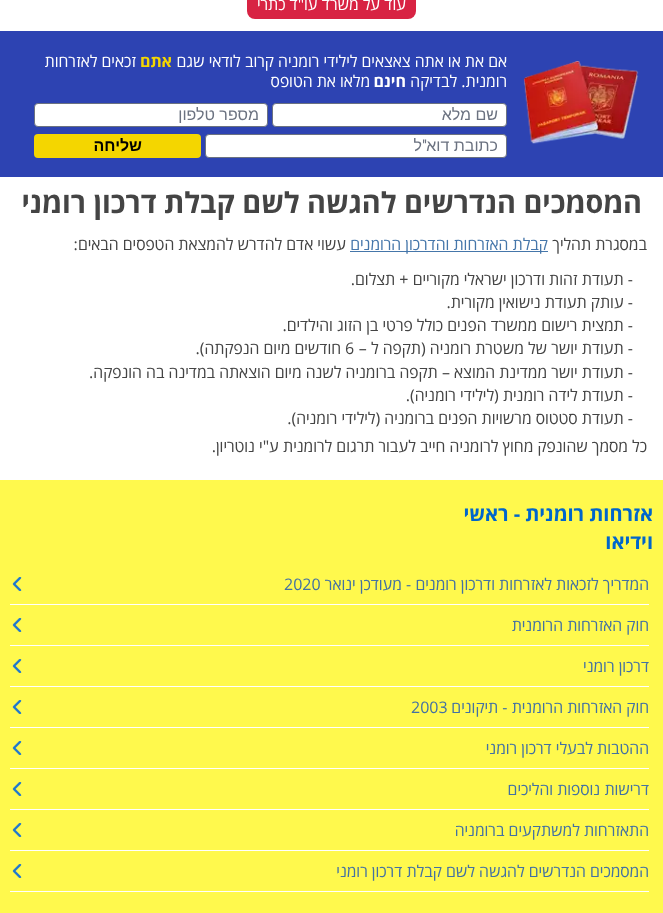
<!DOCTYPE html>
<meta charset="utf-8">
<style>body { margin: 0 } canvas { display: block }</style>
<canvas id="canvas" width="663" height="913"></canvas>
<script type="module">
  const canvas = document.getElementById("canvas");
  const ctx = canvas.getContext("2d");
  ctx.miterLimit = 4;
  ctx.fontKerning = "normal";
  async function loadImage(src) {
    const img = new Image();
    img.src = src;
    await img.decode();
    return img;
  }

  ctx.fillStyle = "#ffffff";
  ctx.fillRect(0, 0, 663, 913);
  ctx.fillStyle = "#d82343";
  ctx.beginPath();
  ctx.roundRect(247, -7, 169, 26, 8);
  ctx.fill();
  ctx.direction = "rtl";
  ctx.font = "16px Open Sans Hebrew";
  ctx.fillStyle = "#ffffff";
  ctx.fillText("עוד על משרד עו\"ד כתרי", 406, 10);
  ctx.fillStyle = "#2d43b2";
  ctx.fillRect(0, 31, 663, 146);
  ctx.drawImage(await loadImage("img1.png"), 523, 61, 116, 83);
  ctx.fillStyle = "#ffffff";
  ctx.fillText("אם את או אתה צאצאים לילידי רומניה קרוב לודאי שגם", 507, 67);
  ctx.font = "bold 16px Open Sans Hebrew";
  ctx.fillStyle = "#f4d600";
  ctx.fillText("אתם", 172, 67);
  ctx.font = "16px Open Sans Hebrew";
  ctx.fillStyle = "#ffffff";
  ctx.fillText("זכאים לאזרחות", 136, 67);
  ctx.fillText("רומנית. לבדיקה", 507, 87);
  ctx.font = "bold 16px Open Sans Hebrew";
  ctx.fillText("חינם", 406, 87);
  ctx.font = "16px Open Sans Hebrew";
  ctx.fillText("מלאו את הטופס", 370, 87);
  ctx.beginPath();
  ctx.roundRect(272.5, 103.5, 234, 23, 3.5);
  ctx.fill();
  ctx.strokeStyle = "#6b7280";
  ctx.stroke();
  ctx.font = "16px Liberation Sans";
  ctx.fillStyle = "#6b7280";
  ctx.fillText("שם מלא", 498, 120);
  ctx.fillStyle = "#ffffff";
  ctx.beginPath();
  ctx.roundRect(34.5, 103.5, 233, 23, 3.5);
  ctx.fill();
  ctx.stroke();
  ctx.fillStyle = "#6b7280";
  ctx.fillText("מספר טלפון", 259, 120);
  ctx.fillStyle = "#ffffff";
  ctx.beginPath();
  ctx.roundRect(205.5, 134.5, 301, 23, 3.5);
  ctx.fill();
  ctx.stroke();
  ctx.fillStyle = "#6b7280";
  ctx.fillText("כתובת דוא", 498, 151);
  ctx.font = "16px Figtree";
  ctx.fillText("\"", 427, 151);
  ctx.font = "16px Liberation Sans";
  ctx.fillText("ל", 422, 151);
  ctx.fillStyle = "#f4d600";
  ctx.beginPath();
  ctx.roundRect(34, 134, 167, 24, 4);
  ctx.fill();
  ctx.font = "bold 16px Liberation Sans";
  ctx.fillStyle = "#000000";
  ctx.fillText("שליחה", 142, 151);
  ctx.font = "bold 28.8px Open Sans Hebrew";
  ctx.fillStyle = "#444444";
  ctx.fillText("המסמכים הנדרשים להגשה לשם קבלת דרכון רומני", 642, 213);
  ctx.font = "16px Open Sans Hebrew";
  ctx.fillText("במסגרת תהליך", 647, 250);
  ctx.fillStyle = "#4576aa";
  ctx.fillRect(350, 251, 198, 1);
  ctx.fillText("קבלת האזרחות והדרכון הרומנים", 548, 250);
  ctx.fillStyle = "#444444";
  ctx.fillText("עשוי אדם להדרש להמצאת הטפסים הבאים:", 346, 250);
  ctx.fillText("- תעודת זהות ודרכון ישראלי מקוריים + תצלום.", 633, 285);
  ctx.fillText("- עותק תעודת נישואין מקורית.", 633, 308);
  ctx.fillText("- תמצית רישום ממשרד הפנים כולל פרטי בן הזוג והילדים.", 633, 331);
  ctx.fillText("- תעודת יושר של משטרת רומניה (תקפה ל –", 633, 354);
  ctx.direction = "ltr";
  ctx.fillText("6", 345, 354);
  ctx.direction = "rtl";
  ctx.fillText("חודשים מיום הנפקתה).", 341, 354);
  ctx.fillText("- תעודת יושר ממדינת המוצא – תקפה ברומניה לשנה מיום הוצאתה במדינה בה הונפקה.", 633, 378);
  ctx.fillText("- תעודת לידה רומנית (לילידי רומניה).", 633, 401);
  ctx.fillText("- תעודת סטטוס מרשויות הפנים ברומניה (לילידי רומניה).", 633, 424);
  ctx.fillText("כל מסמך שהונפק מחוץ לרומניה חייב לעבור תרגום לרומנית ע\"י נוטריון.", 647, 452);
  ctx.fillStyle = "#fff94d";
  ctx.fillRect(0, 480, 663, 433);
  ctx.font = "bold 20px Open Sans Hebrew";
  ctx.fillStyle = "#0066cc";
  ctx.fillText("אזרחות רומנית - ראשי", 653, 521);
  ctx.fillText("וידיאו", 653, 549);
  ctx.drawImage(await loadImage("img2.png"), 12, 577, 10, 14);
  ctx.fillStyle = "#ffffff";
  ctx.fillRect(10, 604, 639, 1);
  ctx.font = "16px Open Sans Hebrew";
  ctx.fillStyle = "#4371a3";
  ctx.fillText("המדריך לזכאות לאזרחות ודרכון רומנים - מעודכן ינואר", 649, 590);
  ctx.direction = "ltr";
  ctx.fillText("2020", 284, 590);
  ctx.drawImage(await loadImage("img2.png"), 12, 618, 10, 14);
  ctx.fillStyle = "#ffffff";
  ctx.fillRect(10, 645, 639, 1);
  ctx.direction = "rtl";
  ctx.fillStyle = "#4371a3";
  ctx.fillText("חוק האזרחות הרומנית", 649, 631);
  ctx.drawImage(await loadImage("img2.png"), 12, 659, 10, 14);
  ctx.fillStyle = "#ffffff";
  ctx.fillRect(10, 686, 639, 1);
  ctx.fillStyle = "#4371a3";
  ctx.fillText("דרכון רומני", 649, 672);
  ctx.drawImage(await loadImage("img2.png"), 12, 700, 10, 14);
  ctx.fillStyle = "#ffffff";
  ctx.fillRect(10, 727, 639, 1);
  ctx.fillStyle = "#4371a3";
  ctx.fillText("חוק האזרחות הרומנית - תיקונים", 649, 713);
  ctx.direction = "ltr";
  ctx.fillText("2003", 411, 713);
  ctx.drawImage(await loadImage("img2.png"), 12, 741, 10, 14);
  ctx.fillStyle = "#ffffff";
  ctx.fillRect(10, 768, 639, 1);
  ctx.direction = "rtl";
  ctx.fillStyle = "#4371a3";
  ctx.fillText("ההטבות לבעלי דרכון רומני", 649, 754);
  ctx.drawImage(await loadImage("img2.png"), 12, 782, 10, 14);
  ctx.fillStyle = "#ffffff";
  ctx.fillRect(10, 809, 639, 1);
  ctx.fillStyle = "#4371a3";
  ctx.fillText("דרישות נוספות והליכים", 649, 795);
  ctx.drawImage(await loadImage("img2.png"), 12, 823, 10, 14);
  ctx.fillStyle = "#ffffff";
  ctx.fillRect(10, 850, 639, 1);
  ctx.fillStyle = "#4371a3";
  ctx.fillText("התאזרחות למשתקעים ברומניה", 649, 836);
  ctx.drawImage(await loadImage("img2.png"), 12, 864, 10, 14);
  ctx.fillStyle = "#ffffff";
  ctx.fillRect(10, 891, 639, 1);
  ctx.fillStyle = "#4371a3";
  ctx.fillText("המסמכים הנדרשים להגשה לשם קבלת דרכון רומני", 649, 877);
</script>
